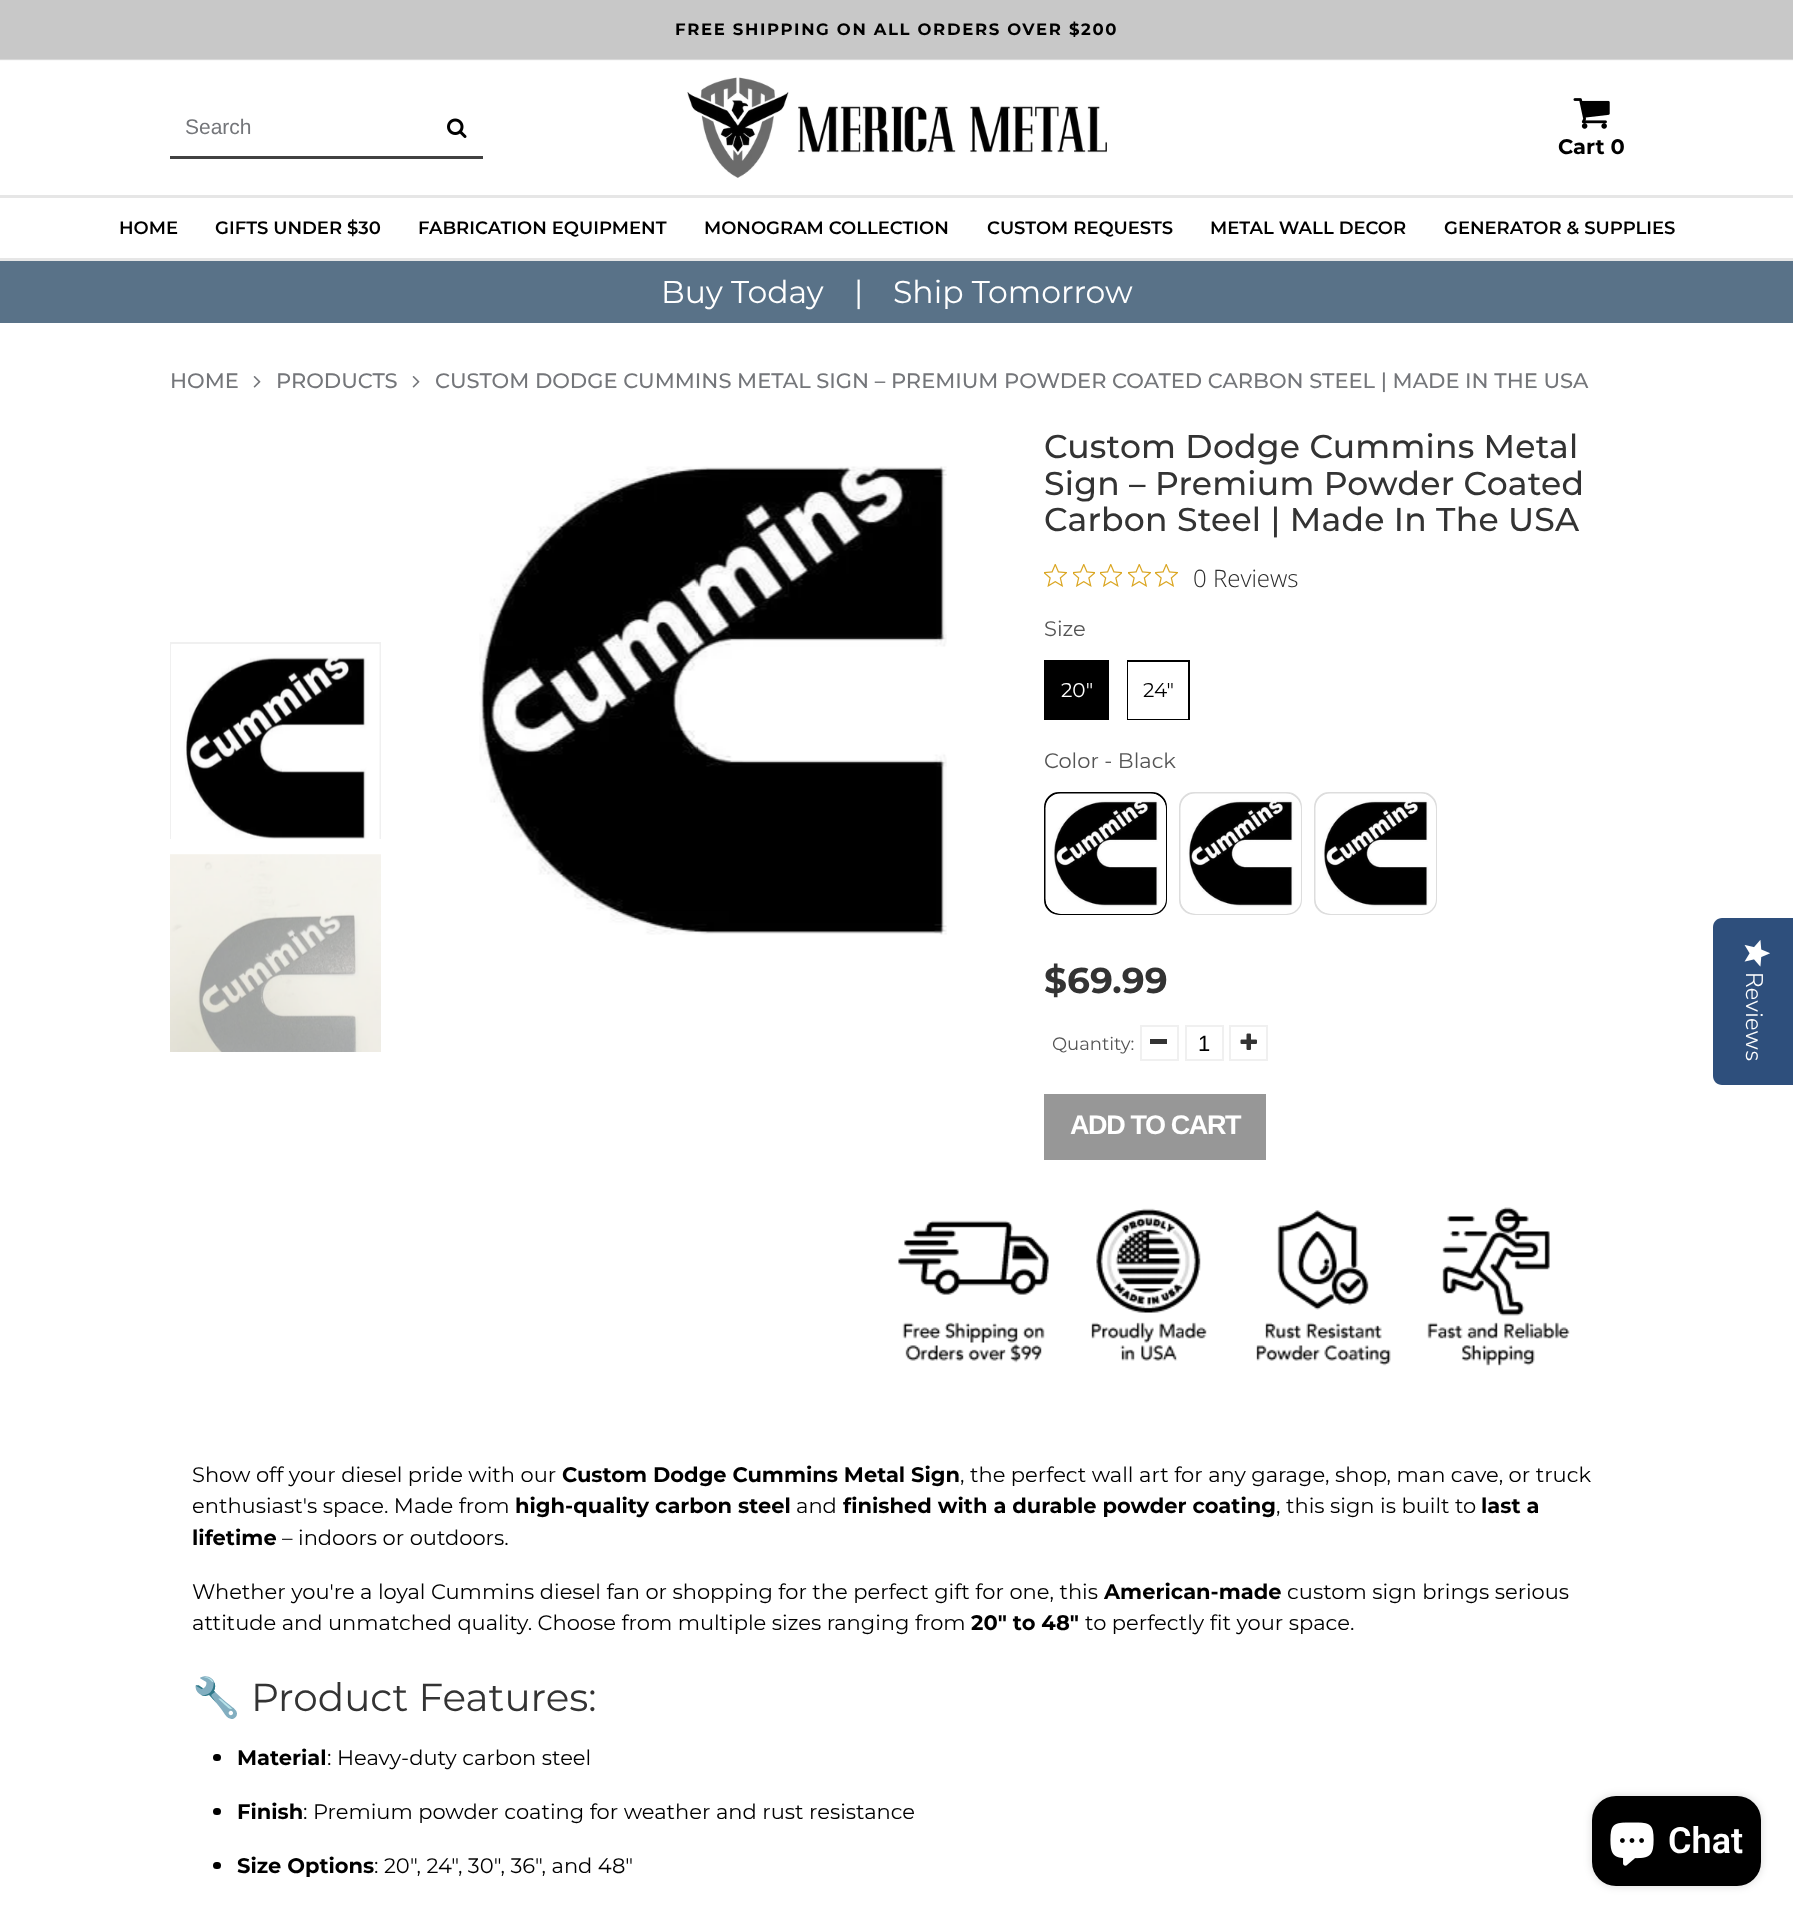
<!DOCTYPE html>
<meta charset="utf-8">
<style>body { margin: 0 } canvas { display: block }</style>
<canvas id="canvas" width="1793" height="1916"></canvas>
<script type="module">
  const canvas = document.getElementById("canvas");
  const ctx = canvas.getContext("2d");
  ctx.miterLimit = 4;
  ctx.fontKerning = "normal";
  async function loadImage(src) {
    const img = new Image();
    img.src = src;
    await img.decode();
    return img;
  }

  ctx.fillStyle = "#ffffff";
  ctx.fillRect(0, 0, 1793, 1916);
  ctx.fillStyle = "#f9f9f9";
  ctx.fillRect(0, 60, 1793, 1);
  ctx.fillStyle = "#c8c8c8";
  ctx.fillRect(0, 0, 1793, 59);
  ctx.fillStyle = "#d8d8d8";
  ctx.fillRect(0, 59, 1793, 1);
  ctx.letterSpacing = "1.65px";
  ctx.font = "bold 16.5px Montserrat";
  ctx.fillStyle = "#000000";
  ctx.fillText("FREE SHIPPING ON ALL ORDERS OVER $200", 675, 35);
  ctx.fillStyle = "#414141";
  ctx.fillRect(170, 156, 313, 3);
  ctx.letterSpacing = "0px";
  ctx.font = "21px Liberation Sans";
  ctx.fillStyle = "#74767a";
  ctx.fillText("Search", 185, 134);
  ctx.drawImage(await loadImage("img1.png"), 447, 118, 20, 20);
  ctx.drawImage(await loadImage("img2.png"), 687, 77, 420, 101);
  ctx.drawImage(await loadImage("img3.png"), 1573, 98, 37, 31);
  ctx.font = "bold 21px Montserrat";
  ctx.fillStyle = "#000000";
  ctx.fillText("Cart 0", 1558, 154);
  ctx.fillStyle = "#e6e6e6";
  ctx.fillRect(0, 195, 1793, 3);
  ctx.fillRect(0, 258, 1793, 3);
  ctx.font = "600 18px Montserrat";
  ctx.fillStyle = "#000000";
  ctx.fillText("HOME", 119, 234);
  ctx.fillText("GIFTS UNDER $30", 215, 234);
  ctx.fillText("FABRICATION EQUIPMENT", 418, 234);
  ctx.fillText("MONOGRAM COLLECTION", 704, 234);
  ctx.fillText("CUSTOM REQUESTS", 987, 234);
  ctx.fillText("METAL WALL DECOR", 1210, 234);
  ctx.fillText("GENERATOR & SUPPLIES", 1444, 234);
  ctx.fillStyle = "#597288";
  ctx.fillRect(0, 261, 1793, 62);
  ctx.font = "31.5px Montserrat";
  ctx.fillStyle = "#ffffff";
  ctx.fillText("Buy Today", 661, 303);
  ctx.fillText("|", 854, 303);
  ctx.fillText("Ship Tomorrow", 893, 303);
  ctx.font = "500 21px Montserrat";
  ctx.fillStyle = "#74767a";
  ctx.fillText("HOME", 170, 388);
  ctx.drawImage(await loadImage("img4.png"), 253, 376, 8, 12);
  ctx.fillText("PRODUCTS", 276, 388);
  ctx.drawImage(await loadImage("img4.png"), 412, 376, 8, 12);
  ctx.fillText("CUSTOM DODGE CUMMINS METAL SIGN – PREMIUM POWDER COATED CARBON STEEL | MADE IN THE USA", 435, 388);
  ctx.strokeStyle = "#f0f0f0";
  ctx.lineWidth = 2;
  ctx.strokeRect(171, 643, 209, 195);
  ctx.drawImage(await loadImage("img5.png"), 171, 644, 209, 195);
  ctx.drawImage(await loadImage("img6.png"), 170, 854, 211, 198);
  ctx.drawImage(await loadImage("img7.png"), 479, 466, 468, 469);
  ctx.letterSpacing = "0.25px";
  ctx.font = "500 33px Montserrat";
  ctx.fillStyle = "#333333";
  ctx.fillText("Custom Dodge Cummins Metal", 1044, 458);
  ctx.fillText("Sign – Premium Powder Coated", 1044, 495);
  ctx.fillText("Carbon Steel | Made In The USA", 1044, 531);
  ctx.drawImage(await loadImage("img8.png"), 1044, 564, 23, 23);
  ctx.drawImage(await loadImage("img9.png"), 1073, 564, 22, 23);
  ctx.drawImage(await loadImage("img9.png"), 1100, 564, 22, 23);
  ctx.drawImage(await loadImage("img8.png"), 1128, 564, 23, 23);
  ctx.drawImage(await loadImage("img8.png"), 1155, 564, 23, 23);
  ctx.letterSpacing = "0px";
  ctx.font = "300 24px Open Sans";
  ctx.fillStyle = "#2c2c2c";
  ctx.fillText("0 Reviews", 1193, 587);
  ctx.font = "21px Montserrat";
  ctx.fillStyle = "#555555";
  ctx.fillText("Size", 1044, 636);
  ctx.strokeStyle = "#000000";
  ctx.strokeRect(1045, 661, 63, 58);
  ctx.fillStyle = "#000000";
  ctx.fillRect(1046, 662, 61, 56);
  ctx.font = "20px Montserrat";
  ctx.fillStyle = "#ffffff";
  ctx.fillText("20\"", 1061, 697);
  ctx.strokeRect(1128, 661, 61, 58);
  ctx.fillRect(1128, 662, 60, 57);
  ctx.fillStyle = "#000000";
  ctx.fillText("24\"", 1143, 697);
  ctx.font = "21px Montserrat";
  ctx.fillStyle = "#555555";
  ctx.fillText("Color - Black", 1044, 768);
  ctx.beginPath();
  ctx.roundRect(1045, 793, 121, 121, 14);
  ctx.stroke();
  ctx.fillStyle = "#ffffff";
  ctx.beginPath();
  ctx.roundRect(1046, 794, 120, 120, 15);
  ctx.fill();
  ctx.drawImage(await loadImage("img10.png"), 1045, 793, 121, 121);
  ctx.beginPath();
  ctx.roundRect(1180, 793, 121, 121, 14);
  ctx.strokeStyle = "#dddddd";
  ctx.stroke();
  ctx.beginPath();
  ctx.roundRect(1181, 794, 120, 120, 15);
  ctx.fill();
  ctx.drawImage(await loadImage("img11.png"), 1180, 793, 114, 115);
  ctx.beginPath();
  ctx.roundRect(1315, 793, 121, 121, 14);
  ctx.stroke();
  ctx.beginPath();
  ctx.roundRect(1316, 794, 120, 120, 15);
  ctx.fill();
  ctx.drawImage(await loadImage("img12.png"), 1315, 793, 114, 115);
  ctx.font = "bold 36px Montserrat";
  ctx.fillStyle = "#333333";
  ctx.fillText("$69.99", 1044, 993);
  ctx.font = "18px Montserrat";
  ctx.fillStyle = "#555555";
  ctx.fillText("Quantity:", 1052, 1050);
  ctx.strokeStyle = "#f0f0f0";
  ctx.strokeRect(1141, 1026, 37, 34);
  ctx.fillStyle = "#333333";
  ctx.fillRect(1150, 1039, 17, 5);
  ctx.strokeRect(1186, 1026, 37, 34);
  ctx.font = "22px Liberation Sans";
  ctx.fillStyle = "#000000";
  ctx.fillText("1", 1198, 1051);
  ctx.strokeRect(1230, 1026, 37, 34);
  ctx.drawImage(await loadImage("img13.png"), 1240, 1033, 17, 17);
  ctx.fillStyle = "#979797";
  ctx.fillRect(1044, 1094, 222, 66);
  ctx.letterSpacing = "-1.4px";
  ctx.font = "bold 27px Liberation Sans";
  ctx.fillStyle = "#ffffff";
  ctx.fillText("ADD TO CART", 1070, 1134);
  ctx.drawImage(await loadImage("img14.png"), 898, 1207, 672, 159);
  ctx.letterSpacing = "0px";
  ctx.font = "21px Montserrat";
  ctx.fillStyle = "#000000";
  ctx.fillText("Show off your diesel pride with our", 192, 1482);
  ctx.font = "bold 21px Montserrat";
  ctx.fillText("Custom Dodge Cummins Metal Sign", 562, 1482);
  ctx.font = "21px Montserrat";
  ctx.fillText(", the perfect wall art for any garage, shop, man cave, or truck", 960, 1482);
  ctx.fillText("enthusiast's space. Made from", 192, 1513);
  ctx.font = "bold 21px Montserrat";
  ctx.fillText("high-quality carbon steel", 515, 1513);
  ctx.font = "21px Montserrat";
  ctx.fillText("and", 796, 1513);
  ctx.font = "bold 21px Montserrat";
  ctx.fillText("finished with a durable powder coating", 843, 1513);
  ctx.font = "21px Montserrat";
  ctx.fillText(", this sign is built to", 1276, 1513);
  ctx.font = "bold 21px Montserrat";
  ctx.fillText("last a", 1481, 1513);
  ctx.fillText("lifetime", 192, 1545);
  ctx.font = "21px Montserrat";
  ctx.fillText("– indoors or outdoors.", 282, 1545);
  ctx.fillText("Whether you're a loyal Cummins diesel fan or shopping for the perfect gift for one, this", 192, 1599);
  ctx.font = "bold 21px Montserrat";
  ctx.fillText("American-made", 1104, 1599);
  ctx.font = "21px Montserrat";
  ctx.fillText("custom sign brings serious", 1287, 1599);
  ctx.fillText("attitude and unmatched quality. Choose from multiple sizes ranging from", 192, 1630);
  ctx.font = "bold 21px Montserrat";
  ctx.fillText("20\" to 48\"", 971, 1630);
  ctx.font = "21px Montserrat";
  ctx.fillText("to perfectly fit your space.", 1085, 1630);
  ctx.font = "39px Noto Color Emoji";
  ctx.fillStyle = "#333333";
  ctx.fillText("🔧", 192, 1711);
  ctx.font = "39px Montserrat";
  ctx.fillText("Product Features:", 251, 1711);
  ctx.fillStyle = "#000000";
  ctx.beginPath();
  ctx.roundRect(213, 1754, 8, 7, 3.5);
  ctx.fill();
  ctx.font = "bold 21px Montserrat";
  ctx.fillText("Material", 237, 1765);
  ctx.font = "21px Montserrat";
  ctx.fillText(": Heavy-duty carbon steel", 327, 1765);
  ctx.beginPath();
  ctx.roundRect(213, 1808, 8, 7, 3.5);
  ctx.fill();
  ctx.font = "bold 21px Montserrat";
  ctx.fillText("Finish", 237, 1819);
  ctx.font = "21px Montserrat";
  ctx.fillText(": Premium powder coating for weather and rust resistance", 303, 1819);
  ctx.beginPath();
  ctx.roundRect(213, 1862, 8, 7, 3.5);
  ctx.fill();
  ctx.font = "bold 21px Montserrat";
  ctx.fillText("Size Options", 237, 1873);
  ctx.font = "21px Montserrat";
  ctx.fillText(": 20\", 24\", 30\", 36\", and 48\"", 374, 1873);
  ctx.fillStyle = "#2e4f7c";
  ctx.beginPath();
  ctx.moveTo(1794, 918);
  ctx.lineTo(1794, 1085);
  ctx.lineTo(1722, 1085);
  ctx.bezierCurveTo(1717, 1085, 1713, 1081, 1713, 1076);
  ctx.lineTo(1713, 927);
  ctx.bezierCurveTo(1713, 922, 1717, 918, 1722, 918);
  ctx.closePath();
  ctx.fill();
  ctx.drawImage(await loadImage("img15.png"), 1744, 940, 26, 27);
  ctx.font = "300 24px Nunito Sans";
  ctx.fillStyle = "#ffffff";
  ctx.save();
  ctx.translate(1746, 972);
  ctx.rotate(90 * Math.PI / 180);
  ctx.fillText("Reviews", 0, 0);
  ctx.restore();
  ctx.fillStyle = "rgba(0, 0, 0, 0.15)";
  ctx.filter = "blur(4px)";
  ctx.beginPath();
  ctx.roundRect(1592, 1796, 169, 90, 24);
  ctx.fill();
  ctx.filter = "none";
  ctx.fillStyle = "#000000";
  ctx.beginPath();
  ctx.roundRect(1592, 1796, 169, 90, 24);
  ctx.fill();
  ctx.drawImage(await loadImage("img16.png"), 1610, 1822, 44, 44);
  ctx.font = "600 36px Roboto";
  ctx.fillStyle = "#ffffff";
  ctx.fillText("Chat", 1668, 1853);
</script>
